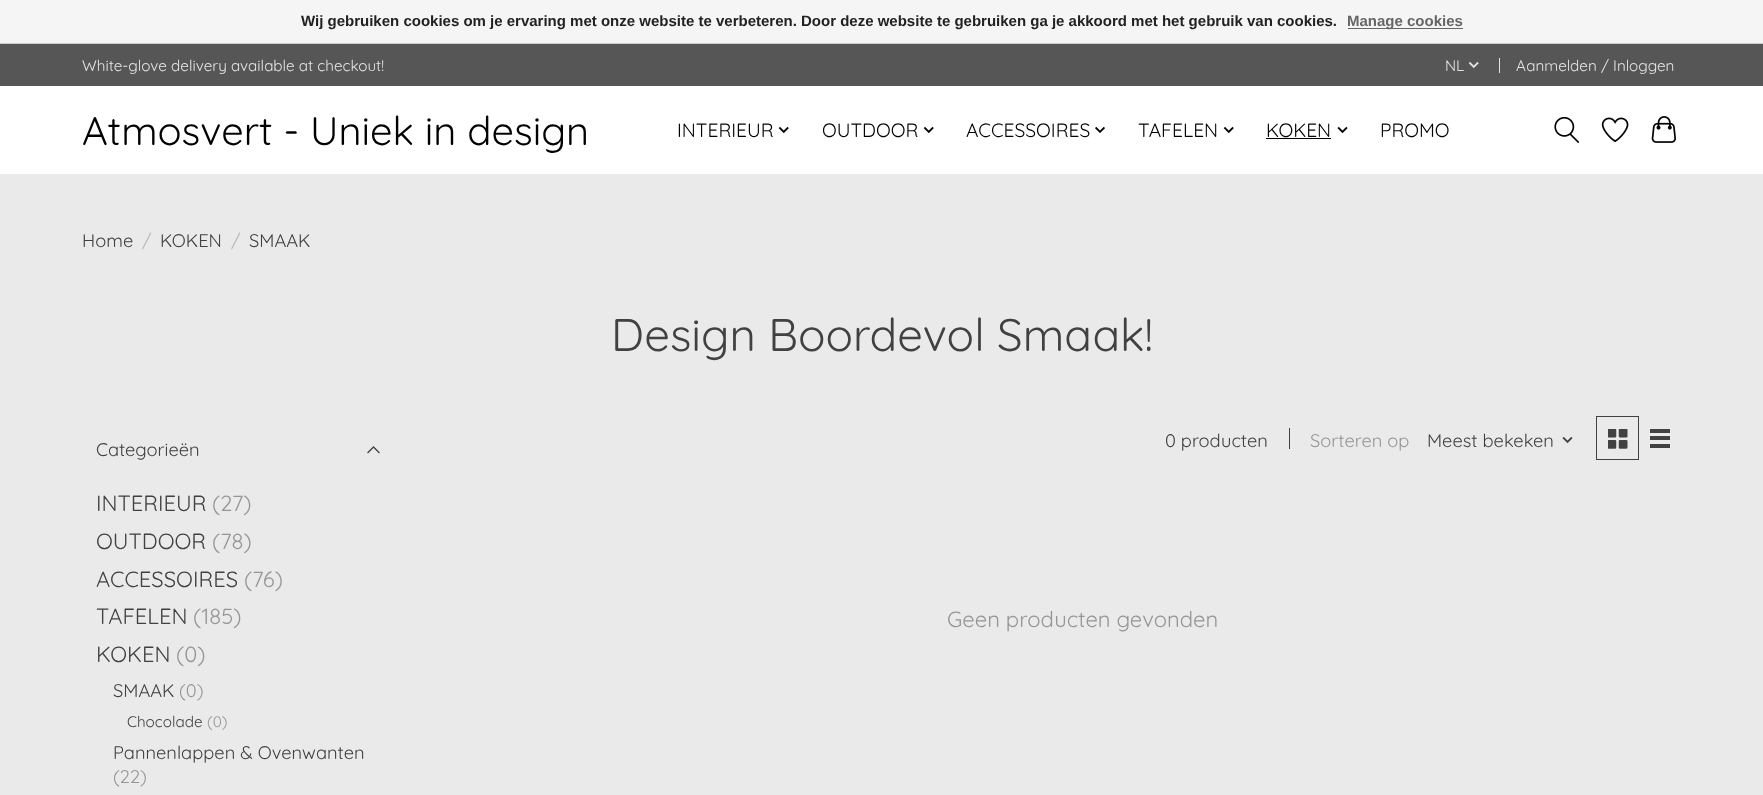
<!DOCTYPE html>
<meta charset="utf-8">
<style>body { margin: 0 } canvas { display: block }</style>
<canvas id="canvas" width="1763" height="795"></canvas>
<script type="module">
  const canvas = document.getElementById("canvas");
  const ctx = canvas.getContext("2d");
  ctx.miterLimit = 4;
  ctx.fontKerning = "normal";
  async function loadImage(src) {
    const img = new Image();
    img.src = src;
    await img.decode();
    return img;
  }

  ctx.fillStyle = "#eaeaea";
  ctx.fillRect(0, 0, 1763, 795);
  ctx.fillStyle = "#f5f5f5";
  ctx.fillRect(0, 0, 1763, 43);
  ctx.fillStyle = "#cccccc";
  ctx.fillRect(0, 43, 1763, 1);
  ctx.font = "bold 15px Liberation Sans";
  ctx.fillStyle = "#222222";
  ctx.fillText("Wij gebruiken cookies om je ervaring met onze website te verbeteren. Door deze website te gebruiken ga je akkoord met het gebruik van cookies.", 301, 26);
  ctx.fillStyle = "#666666";
  ctx.fillRect(1348, 28, 115, 1);
  ctx.fillText("Manage cookies", 1347, 26);
  ctx.fillStyle = "#ffffff";
  ctx.fillRect(0, 86, 1763, 88);
  ctx.fillStyle = "#565656";
  ctx.fillRect(0, 44, 1763, 42);
  ctx.font = "15.25px Quicksand";
  ctx.fillStyle = "#e4e4e4";
  ctx.fillText("White-glove delivery available at checkout!", 82, 71);
  ctx.fillText("NL", 1445, 71);
  ctx.drawImage(await loadImage("img1.png"), 1468, 61, 11, 8);
  ctx.fillRect(1499, 58, 1, 15);
  ctx.fillText("Aanmelden / Inloggen", 1516, 71);
  ctx.font = "39.9px Quicksand";
  ctx.fillStyle = "#000000";
  ctx.fillText("Atmosvert - Uniek in design", 82, 145);
  ctx.font = "19.25px Quicksand";
  ctx.fillText("INTERIEUR", 677, 137);
  ctx.drawImage(await loadImage("img2.png"), 778, 126, 11, 8);
  ctx.fillText("OUTDOOR", 822, 137);
  ctx.drawImage(await loadImage("img2.png"), 923, 126, 11, 8);
  ctx.fillText("ACCESSOIRES", 966, 137);
  ctx.drawImage(await loadImage("img3.png"), 1095, 126, 10, 7);
  ctx.fillText("TAFELEN", 1138, 137);
  ctx.drawImage(await loadImage("img2.png"), 1223, 126, 11, 8);
  ctx.fillText("KOKEN", 1266, 137);
  ctx.fillRect(1266, 138, 65, 1);
  ctx.drawImage(await loadImage("img4.png"), 1337, 126, 11, 8);
  ctx.fillText("PROMO", 1380, 137);
  ctx.drawImage(await loadImage("img5.png"), 1554, 116, 26, 27);
  ctx.drawImage(await loadImage("img6.png"), 1601, 117, 28, 25);
  ctx.drawImage(await loadImage("img7.png"), 1651, 116, 25, 27);
  ctx.font = "18.3px Quicksand";
  ctx.fillStyle = "#414141";
  ctx.fillText("Home", 82, 247);
  ctx.fillStyle = "#b7b7b7";
  ctx.fillText("/", 142, 247);
  ctx.fillStyle = "#414141";
  ctx.fillText("KOKEN", 160, 247);
  ctx.fillStyle = "#b7b7b7";
  ctx.fillText("/", 231, 247);
  ctx.fillStyle = "#414141";
  ctx.fillText("SMAAK", 249, 247);
  ctx.font = "45.6px Quicksand";
  ctx.fillText("Design Boordevol Smaak!", 611, 351);
  ctx.font = "18.3px Quicksand";
  ctx.fillText("Categorieën", 96, 456);
  ctx.beginPath();
  ctx.moveTo(368, 452.5);
  ctx.lineTo(373.5, 447);
  ctx.moveTo(379, 452.5);
  ctx.lineTo(373.5, 447);
  ctx.strokeStyle = "#414141";
  ctx.lineWidth = 1.3;
  ctx.lineCap = "square";
  ctx.stroke();
  ctx.font = "22px Quicksand";
  ctx.fillText("INTERIEUR", 96, 511);
  ctx.fillStyle = "#969696";
  ctx.fillText("(27)", 212, 511);
  ctx.fillStyle = "#414141";
  ctx.fillText("OUTDOOR", 96, 549);
  ctx.fillStyle = "#969696";
  ctx.fillText("(78)", 212, 549);
  ctx.fillStyle = "#414141";
  ctx.fillText("ACCESSOIRES", 96, 587);
  ctx.fillStyle = "#969696";
  ctx.fillText("(76)", 244, 587);
  ctx.fillStyle = "#414141";
  ctx.fillText("TAFELEN", 96, 624);
  ctx.fillStyle = "#969696";
  ctx.fillText("(185)", 193, 624);
  ctx.fillStyle = "#414141";
  ctx.fillText("KOKEN", 96, 662);
  ctx.fillStyle = "#969696";
  ctx.fillText("(0)", 176, 662);
  ctx.font = "18.3px Quicksand";
  ctx.fillStyle = "#414141";
  ctx.fillText("SMAAK", 113, 697);
  ctx.fillStyle = "#969696";
  ctx.fillText("(0)", 179, 697);
  ctx.font = "15.25px Quicksand";
  ctx.fillStyle = "#414141";
  ctx.fillText("Chocolade", 127, 727);
  ctx.fillStyle = "#969696";
  ctx.fillText("(0)", 207, 727);
  ctx.font = "18.3px Quicksand";
  ctx.fillStyle = "#414141";
  ctx.fillText("Pannenlappen & Ovenwanten", 113, 759);
  ctx.fillStyle = "#969696";
  ctx.fillText("(22)", 113, 783);
  ctx.fillStyle = "#414141";
  ctx.fillText("0 producten", 1165, 447);
  ctx.fillRect(1289, 428, 1, 21);
  ctx.fillStyle = "#969696";
  ctx.fillText("Sorteren op", 1310, 447);
  ctx.fillStyle = "#414141";
  ctx.fillText("Meest bekeken", 1427, 447);
  ctx.drawImage(await loadImage("img8.png"), 1562, 436, 11, 8);
  ctx.lineWidth = 1;
  ctx.strokeRect(1596.5, 416.5, 42, 43);
  ctx.drawImage(await loadImage("img9.png"), 1608, 429, 20, 20);
  ctx.fillRect(1650, 429, 20, 4);
  ctx.fillRect(1650, 436, 20, 4);
  ctx.fillRect(1650, 444, 20, 4);
  ctx.font = "22px Quicksand";
  ctx.fillStyle = "#969696";
  ctx.fillText("Geen producten gevonden", 947, 627);
</script>
